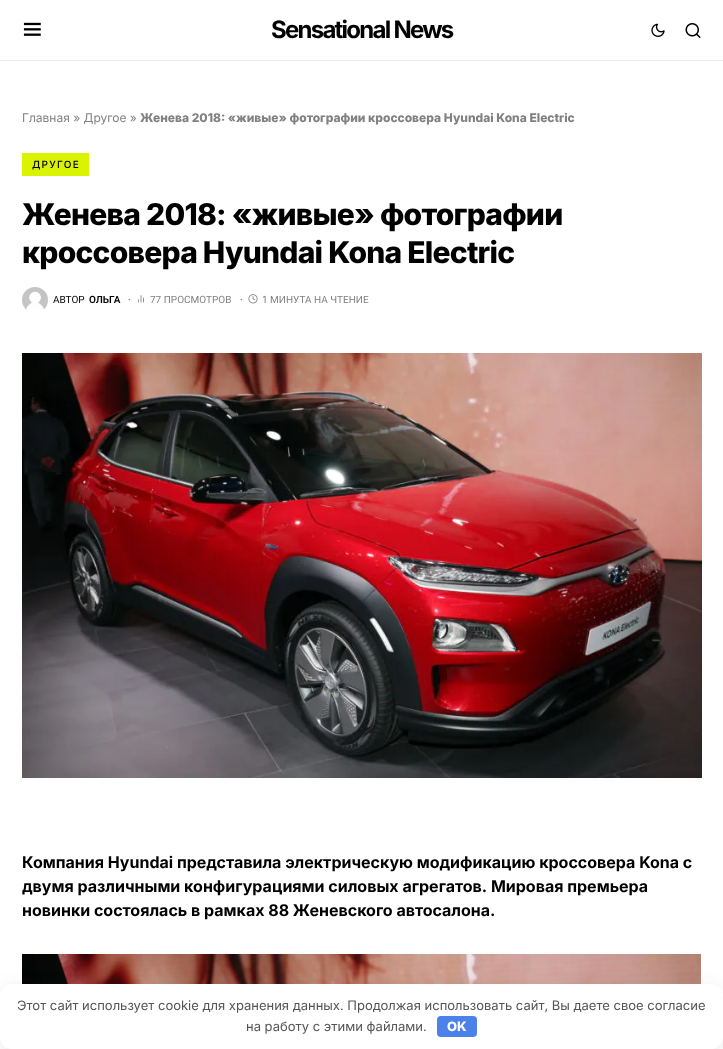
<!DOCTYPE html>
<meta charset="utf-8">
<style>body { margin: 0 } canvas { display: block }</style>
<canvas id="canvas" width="723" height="1049"></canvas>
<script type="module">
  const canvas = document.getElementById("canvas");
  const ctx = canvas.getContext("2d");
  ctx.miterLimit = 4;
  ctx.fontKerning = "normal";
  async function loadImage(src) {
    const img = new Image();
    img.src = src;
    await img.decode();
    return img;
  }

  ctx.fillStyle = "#ffffff";
  ctx.fillRect(0, 0, 723, 1049);
  ctx.fillStyle = "#e9ecef";
  ctx.fillRect(0, 60, 723, 1);
  ctx.drawImage(await loadImage("img1.png"), 23, 22, 18, 14);
  ctx.letterSpacing = "-1.75px";
  ctx.font = "bold 24px Inter";
  ctx.fillStyle = "#000000";
  ctx.fillText("Sensational News", 271, 38);
  ctx.drawImage(await loadImage("img2.png"), 651, 23, 14, 14);
  ctx.drawImage(await loadImage("img3.png"), 685, 23, 16, 15);
  ctx.letterSpacing = "0px";
  ctx.font = "12px Inter";
  ctx.fillStyle = "#818181";
  ctx.fillText("Главная » Другое »", 22, 122);
  ctx.font = "800 12px Inter";
  ctx.fillText("Женева 2018: «живые» фотографии кроссовера Hyundai Kona Electric", 140, 122);
  ctx.fillStyle = "#daf400";
  ctx.fillRect(22, 153, 67, 23);
  ctx.letterSpacing = "1.25px";
  ctx.font = "500 10px Inter";
  ctx.fillStyle = "#000000";
  ctx.fillText("ДРУГОЕ", 32, 168);
  ctx.letterSpacing = "-0.75px";
  ctx.font = "800 30px Inter";
  ctx.fillText("Женева 2018: «живые» фотографии", 22, 225);
  ctx.fillText("кроссовера Hyundai Kona Electric", 22, 263);
  ctx.drawImage(await loadImage("img4.png"), 22, 287, 26, 23);
  ctx.letterSpacing = "0px";
  ctx.font = "10px Roboto";
  ctx.fillText("АВТОР", 53, 303);
  ctx.font = "600 10px Roboto";
  ctx.fillText("ОЛЬГА", 89, 303);
  ctx.fillStyle = "#818181";
  ctx.fillText("·", 128, 303);
  ctx.drawImage(await loadImage("img5.png"), 138, 295, 6, 8);
  ctx.font = "10px Roboto";
  ctx.fillText("77 ПРОСМОТРОВ", 150, 303);
  ctx.font = "600 10px Roboto";
  ctx.fillText("·", 240, 303);
  ctx.drawImage(await loadImage("img6.png"), 248, 294, 10, 10);
  ctx.font = "10px Roboto";
  ctx.fillText("1 МИНУТА НА ЧТЕНИЕ", 262, 303);
  ctx.drawImage(await loadImage("img7.png"), 22, 353, 680, 425);
  ctx.font = "bold 16px Inter";
  ctx.fillStyle = "#000000";
  ctx.fillText("Компания Hyundai представила электрическую модификацию кроссовера Kona с", 22, 868);
  ctx.fillText("двумя различными конфигурациями силовых агрегатов. Мировая премьера", 22, 892);
  ctx.fillText("новинки состоялась в рамках 88 Женевского автосалона.", 22, 916);
  ctx.drawImage(await loadImage("img8.png"), 22, 954, 679, 30);
  ctx.fillStyle = "rgba(41, 44, 56, 0.2)";
  ctx.filter = "blur(10px)";
  ctx.beginPath();
  ctx.roundRect(5, 992, 713, 55, 7);
  ctx.fill();
  ctx.filter = "none";
  ctx.fillStyle = "#ffffff";
  ctx.beginPath();
  ctx.roundRect(0, 984, 723, 65, 12);
  ctx.fill();
  ctx.font = "13px Inter";
  ctx.fillStyle = "#555555";
  ctx.fillText("Этот сайт использует cookie для хранения данных. Продолжая использовать сайт, Вы даете свое согласие", 17, 1010);
  ctx.fillText("на работу с этими файлами.", 246, 1031);
  ctx.fillStyle = "#4b81e8";
  ctx.beginPath();
  ctx.roundRect(437, 1016, 40, 21, 4);
  ctx.fill();
  ctx.font = "800 13px Inter";
  ctx.fillStyle = "#ffffff";
  ctx.fillText("OK", 447, 1031);
</script>
